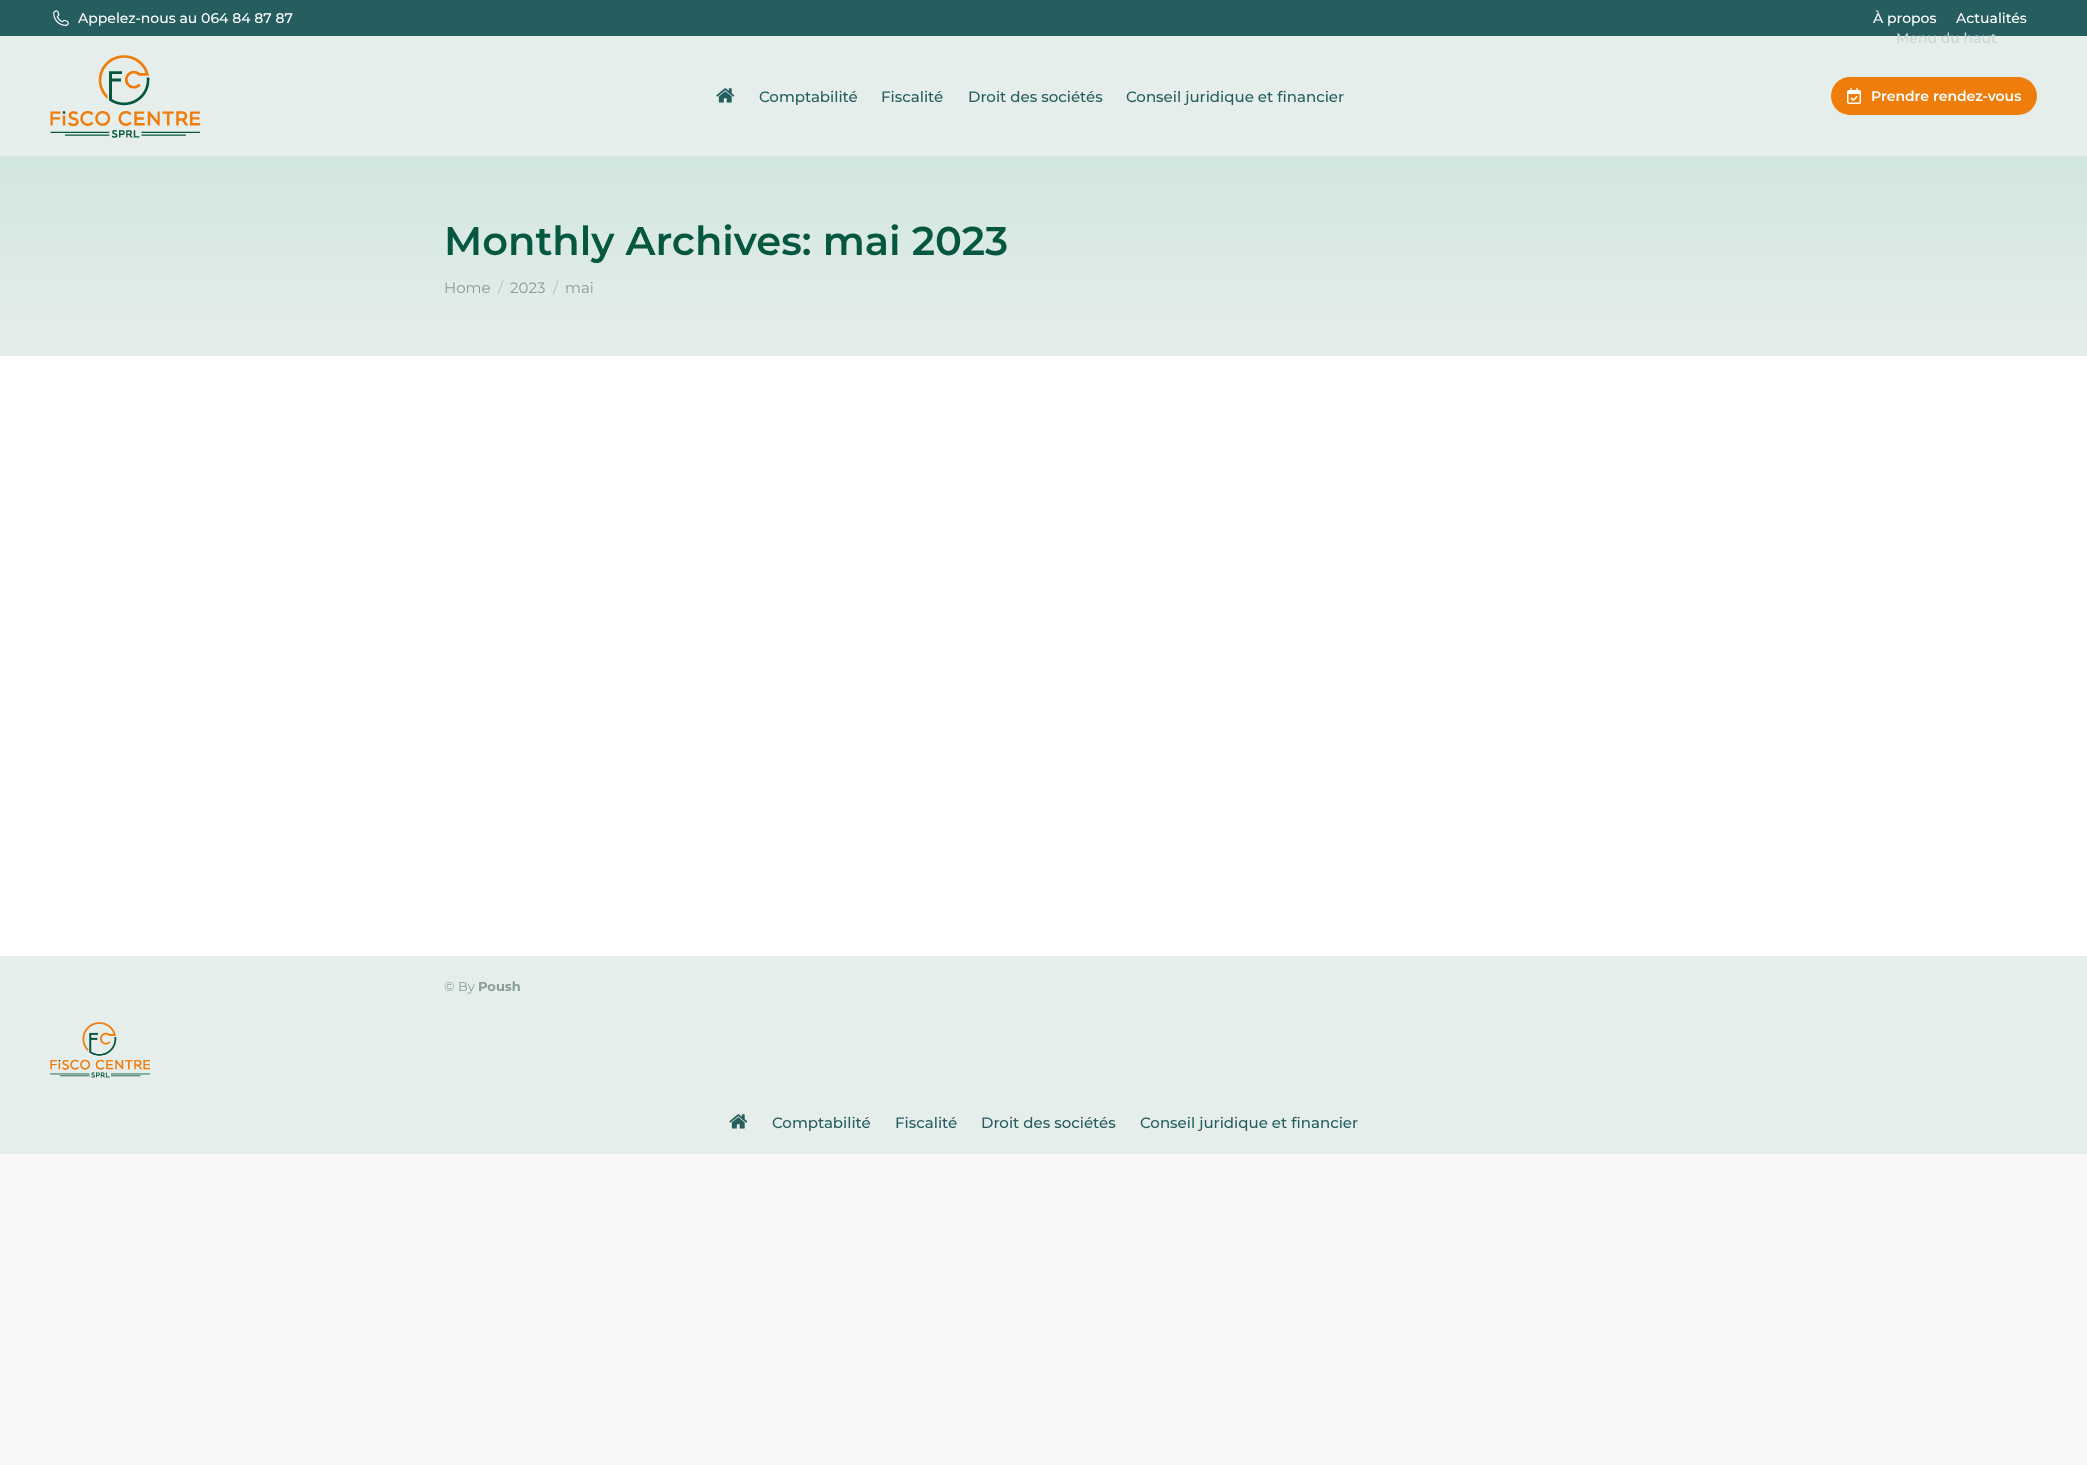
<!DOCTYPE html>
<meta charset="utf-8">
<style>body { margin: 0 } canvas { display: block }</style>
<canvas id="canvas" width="2087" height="1465"></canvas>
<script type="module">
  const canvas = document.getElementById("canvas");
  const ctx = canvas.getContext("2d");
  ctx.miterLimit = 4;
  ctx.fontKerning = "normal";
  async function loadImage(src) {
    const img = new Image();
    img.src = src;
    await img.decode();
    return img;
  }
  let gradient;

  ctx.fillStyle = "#f7f7f7";
  ctx.fillRect(0, 0, 2087, 1465);
  ctx.fillStyle = "#ffffff";
  ctx.fillRect(0, 356, 2087, 600);
  ctx.fillStyle = "#e6eeec";
  ctx.fillRect(0, 36, 2087, 120);
  ctx.fillStyle = "#265e5f";
  ctx.fillRect(0, 0, 2087, 36);
  ctx.drawImage(await loadImage("img1.png"), 53, 10, 16, 16);
  ctx.font = "500 14px Montserrat";
  ctx.fillStyle = "#ffffff";
  ctx.fillText("Appelez-nous au 064 84 87 87", 78, 23);
  ctx.fillText("À propos", 1873, 23);
  ctx.fillText("Actualités", 1956, 23);
  ctx.fillStyle = "#c6d6d4";
  ctx.fillText("Menu du haut", 1896, 43);
  ctx.drawImage(await loadImage("img2.png"), 50, 55, 150, 83);
  ctx.drawImage(await loadImage("img3.png"), 716, 88, 19, 15);
  ctx.font = "500 15px Montserrat";
  ctx.fillStyle = "#265e5f";
  ctx.fillText("Comptabilité", 759, 102);
  ctx.fillText("Fiscalité", 881, 102);
  ctx.fillText("Droit des sociétés", 968, 102);
  ctx.fillText("Conseil juridique et financier", 1126, 102);
  ctx.fillStyle = "#ee7d0b";
  ctx.beginPath();
  ctx.roundRect(1831, 77, 206, 38, 19);
  ctx.fill();
  ctx.drawImage(await loadImage("img4.png"), 1847, 88, 14, 16);
  ctx.font = "600 14px Montserrat";
  ctx.fillStyle = "#ffffff";
  ctx.fillText("Prendre rendez-vous", 1871, 101);
  gradient = ctx.createLinearGradient(1044, 156, 1044, 356);
  gradient.addColorStop(0, "#d1e6df");
  gradient.addColorStop(1, "#e6eeec");
  ctx.fillStyle = gradient;
  ctx.fillRect(0, 156, 2087, 200);
  ctx.font = "600 40px Montserrat";
  ctx.fillStyle = "#06573f";
  ctx.fillText("Monthly Archives: mai 2023", 444, 255);
  ctx.font = "15px Montserrat";
  ctx.fillStyle = "#869e96";
  ctx.fillText("Home", 444, 293);
  ctx.fillStyle = "#b2c5bf";
  ctx.fillText("/", 498, 293);
  ctx.fillStyle = "#869e96";
  ctx.fillText("2023", 510, 293);
  ctx.fillStyle = "#b2c5bf";
  ctx.fillText("/", 553, 293);
  ctx.fillStyle = "#869e96";
  ctx.fillText("mai", 565, 293);
  ctx.fillStyle = "#e6eeec";
  ctx.fillRect(0, 956, 2087, 198);
  ctx.font = "13px Montserrat";
  ctx.fillStyle = "#869e96";
  ctx.fillText("© By", 444, 991);
  ctx.font = "bold 13px Montserrat";
  ctx.fillText("Poush", 478, 991);
  ctx.drawImage(await loadImage("img5.png"), 50, 1022, 100, 56);
  ctx.drawImage(await loadImage("img3.png"), 729, 1114, 19, 15);
  ctx.font = "500 15px Montserrat";
  ctx.fillStyle = "#265e5f";
  ctx.fillText("Comptabilité", 772, 1128);
  ctx.fillText("Fiscalité", 895, 1128);
  ctx.fillText("Droit des sociétés", 981, 1128);
  ctx.fillText("Conseil juridique et financier", 1140, 1128);
</script>
